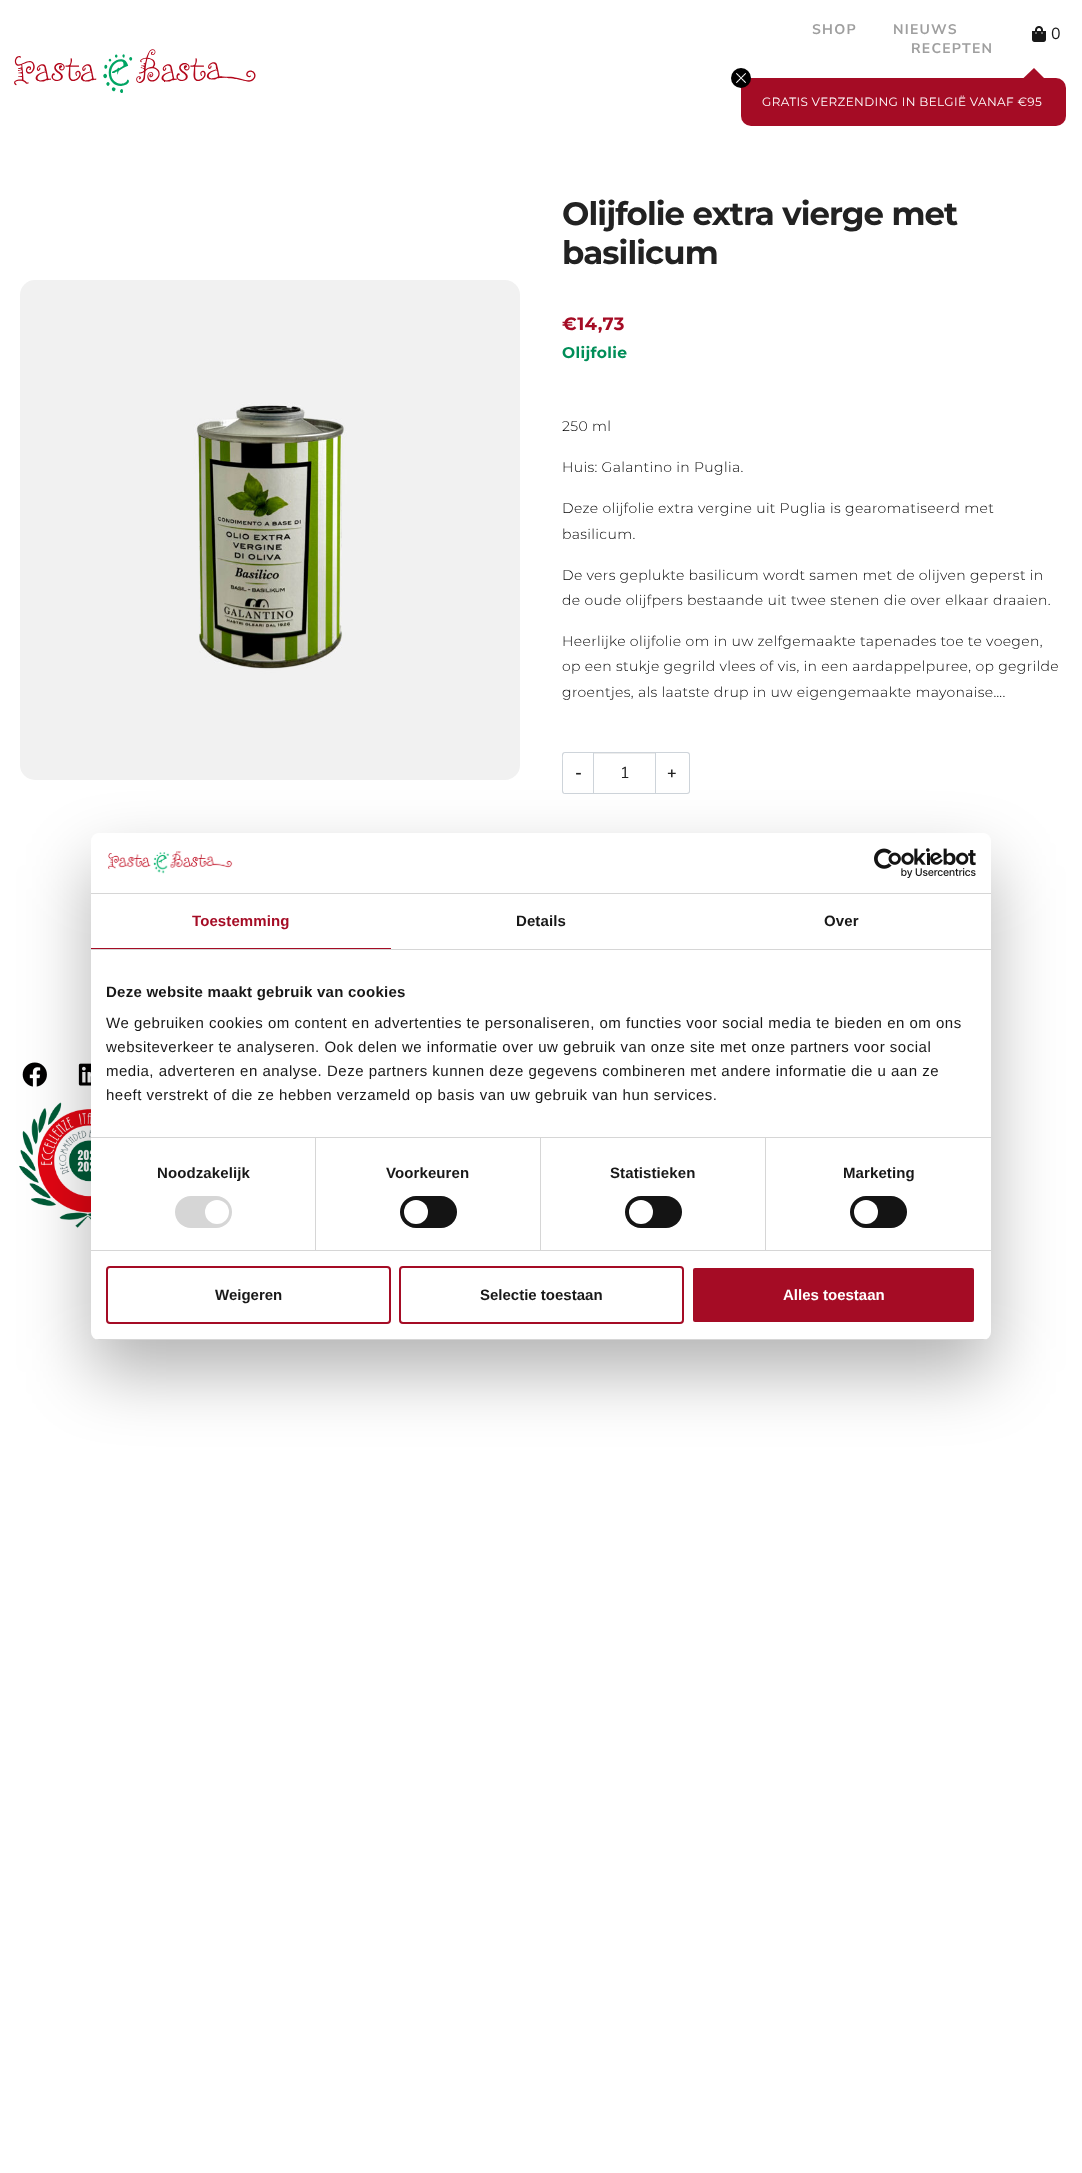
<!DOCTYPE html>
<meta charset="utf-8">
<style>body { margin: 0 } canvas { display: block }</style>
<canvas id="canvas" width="1082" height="2173"></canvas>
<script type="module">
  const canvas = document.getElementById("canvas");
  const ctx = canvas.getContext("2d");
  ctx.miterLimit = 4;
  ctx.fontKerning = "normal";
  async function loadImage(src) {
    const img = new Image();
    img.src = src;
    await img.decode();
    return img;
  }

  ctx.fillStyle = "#ffffff";
  ctx.fillRect(0, 0, 1082, 2173);
  ctx.drawImage(await loadImage("img1.png"), 14, 49, 242, 44);
  ctx.letterSpacing = "1.25px";
  ctx.font = "bold 14px Nunito Sans";
  ctx.fillStyle = "#9f9f9f";
  ctx.fillText("SHOP", 812, 34);
  ctx.fillText("NIEUWS", 893, 34);
  ctx.fillText("RECEPTEN", 911, 53);
  ctx.drawImage(await loadImage("img2.png"), 1032, 26, 14, 16);
  ctx.letterSpacing = "0.35px";
  ctx.font = "16px Nunito Sans";
  ctx.fillStyle = "#181818";
  ctx.fillText("0", 1051, 39);
  ctx.fillStyle = "#a50c25";
  ctx.beginPath();
  ctx.moveTo(1034, 68);
  ctx.lineTo(1044.5, 78.5);
  ctx.lineTo(1034, 89);
  ctx.lineTo(1023, 78.5);
  ctx.closePath();
  ctx.fill();
  ctx.beginPath();
  ctx.roundRect(741, 78, 325, 48, 10);
  ctx.fill();
  ctx.fillStyle = "#000000";
  ctx.beginPath();
  ctx.arc(741, 78, 10, 0, Math.PI * 2);
  ctx.fill();
  ctx.drawImage(await loadImage("img3.png"), 736, 73, 10, 10);
  ctx.font = "12px Montserrat";
  ctx.fillStyle = "#ffffff";
  ctx.fillText("GRATIS VERZENDING IN BELGIË VANAF €95", 762, 106);
  ctx.drawImage(await loadImage("img4.png"), 20, 280, 500, 500);
  ctx.letterSpacing = "-0.9px";
  ctx.font = "bold 32.4px Montserrat";
  ctx.fillStyle = "#222222";
  ctx.fillText("Olijfolie extra vierge met", 562, 225);
  ctx.fillText("basilicum", 562, 264);
  ctx.letterSpacing = "0.35px";
  ctx.font = "bold 18px Montserrat";
  ctx.fillStyle = "#a50c25";
  ctx.fillText("€14,73", 562, 330);
  ctx.font = "bold 15.5px Montserrat";
  ctx.fillStyle = "#008e58";
  ctx.fillText("Olijfolie", 562, 358);
  ctx.font = "300 14px Montserrat";
  ctx.fillStyle = "#000000";
  ctx.fillText("250 ml", 562, 431);
  ctx.fillText("Huis: Galantino in Puglia.", 562, 472);
  ctx.fillText("Deze olijfolie extra vergine uit Puglia is gearomatiseerd met", 562, 513);
  ctx.fillText("basilicum.", 562, 539);
  ctx.fillText("De vers geplukte basilicum wordt samen met de olijven geperst in", 562, 580);
  ctx.fillText("de oude olijfpers bestaande uit twee stenen die over elkaar draaien.", 562, 605);
  ctx.fillText("Heerlijke olijfolie om in uw zelfgemaakte tapenades toe te voegen,", 562, 646);
  ctx.fillText("op een stukje gegrild vlees of vis, in een aardappelpuree, op gegrilde", 562, 671);
  ctx.fillText("groentjes, als laatste drup in uw eigengemaakte mayonaise….", 562, 697);
  ctx.fillStyle = "#ececec";
  ctx.fillRect(594, 753, 61, 1);
  ctx.strokeStyle = "#ced4da";
  ctx.strokeRect(593.5, 752.5, 62, 41);
  ctx.fillStyle = "#ced4da";
  ctx.beginPath();
  ctx.moveTo(565, 752);
  ctx.lineTo(594, 752);
  ctx.lineTo(594, 794);
  ctx.lineTo(565, 794);
  ctx.bezierCurveTo(563, 794, 562, 793, 562, 791);
  ctx.lineTo(562, 755);
  ctx.bezierCurveTo(562, 753, 563, 752, 565, 752);
  ctx.closePath();
  ctx.moveTo(565, 753);
  ctx.lineTo(594, 753);
  ctx.lineTo(594, 793);
  ctx.lineTo(564, 793);
  ctx.lineTo(563, 791);
  ctx.lineTo(563, 761);
  ctx.bezierCurveTo(563, 760, 562, 753, 565, 753);
  ctx.closePath();
  ctx.fill("evenodd");
  ctx.letterSpacing = "0px";
  ctx.font = "bold 16px Nunito Sans";
  ctx.fillStyle = "#222222";
  ctx.fillText("-", 575, 778);
  ctx.font = "16px Nunito Sans";
  ctx.fillText("1", 620, 778);
  ctx.fillStyle = "#ced4da";
  ctx.beginPath();
  ctx.moveTo(655, 752);
  ctx.lineTo(687, 752);
  ctx.bezierCurveTo(689, 752, 690, 753, 690, 755);
  ctx.lineTo(690, 791);
  ctx.bezierCurveTo(690, 793, 689, 794, 687, 794);
  ctx.lineTo(655, 794);
  ctx.closePath();
  ctx.moveTo(655, 753);
  ctx.lineTo(687, 753);
  ctx.bezierCurveTo(688, 753, 689, 754, 689, 755);
  ctx.lineTo(689, 791);
  ctx.bezierCurveTo(689, 792, 688, 793, 687, 793);
  ctx.lineTo(655, 793);
  ctx.closePath();
  ctx.fill("evenodd");
  ctx.font = "bold 16px Nunito Sans";
  ctx.fillStyle = "#222222";
  ctx.fillText("+", 667, 778);
  ctx.drawImage(await loadImage("img5.png"), 22, 1062, 25, 25);
  ctx.drawImage(await loadImage("img6.png"), 78, 1063, 13, 23);
  ctx.drawImage(await loadImage("img7.png"), 19, 1102, 72, 129);
  ctx.fillStyle = "rgba(0, 0, 0, 0.3)";
  ctx.filter = "blur(34px)";
  ctx.beginPath();
  ctx.roundRect(91, 865, 900, 507, 8);
  ctx.fill();
  ctx.filter = "none";
  ctx.fillStyle = "#ffffff";
  ctx.beginPath();
  ctx.roundRect(91, 833, 900, 507, 8);
  ctx.fill();
  ctx.fillStyle = "#d6d6d6";
  ctx.fillRect(91, 893, 900, 1);
  ctx.drawImage(await loadImage("img8.png"), 108, 851, 125, 23);
  ctx.drawImage(await loadImage("img9.png"), 874, 848, 102, 30);
  ctx.fillRect(91, 949, 900, 1);
  ctx.fillStyle = "#a50c25";
  ctx.fillRect(91, 948, 300, 1);
  ctx.letterSpacing = "0.1px";
  ctx.font = "bold 15px Liberation Sans";
  ctx.fillText("Toestemming", 192, 926);
  ctx.fillStyle = "#181818";
  ctx.fillText("Details", 516, 926);
  ctx.fillText("Over", 824, 926);
  ctx.fillStyle = "#d6d6d6";
  ctx.fillRect(91, 1137, 900, 1);
  ctx.letterSpacing = "0.25px";
  ctx.fillStyle = "#181818";
  ctx.fillText("Deze website maakt gebruik van cookies", 106, 997);
  ctx.letterSpacing = "0.5px";
  ctx.font = "15px Liberation Sans";
  ctx.fillText("We gebruiken cookies om content en advertenties te personaliseren, om functies voor social media te bieden en om ons", 106, 1028);
  ctx.fillText("websiteverkeer te analyseren. Ook delen we informatie over uw gebruik van onze site met onze partners voor social", 106, 1052);
  ctx.fillText("media, adverteren en analyse. Deze partners kunnen deze gegevens combineren met andere informatie die u aan ze", 106, 1076);
  ctx.fillText("heeft verstrekt of die ze hebben verzameld op basis van uw gebruik van hun services.", 106, 1100);
  ctx.fillStyle = "#d6d6d6";
  ctx.fillRect(91, 1250, 900, 1);
  ctx.fillRect(315, 1138, 1, 112);
  ctx.letterSpacing = "0.1px";
  ctx.font = "bold 15px Liberation Sans";
  ctx.fillStyle = "#181818";
  ctx.fillText("Noodzakelijk", 157, 1178);
  ctx.fillStyle = "#d6d6d6";
  ctx.beginPath();
  ctx.roundRect(175, 1196, 57, 32, 16);
  ctx.fill();
  ctx.fillStyle = "#ffffff";
  ctx.beginPath();
  ctx.arc(217, 1212, 12, 0, Math.PI * 2);
  ctx.fill();
  ctx.fillStyle = "#d6d6d6";
  ctx.fillRect(540, 1138, 1, 112);
  ctx.fillStyle = "#181818";
  ctx.fillText("Voorkeuren", 386, 1178);
  ctx.fillStyle = "#141414";
  ctx.beginPath();
  ctx.roundRect(400, 1196, 57, 32, 16);
  ctx.fill();
  ctx.fillStyle = "#ffffff";
  ctx.beginPath();
  ctx.arc(416, 1212, 12, 0, Math.PI * 2);
  ctx.fill();
  ctx.fillStyle = "#d6d6d6";
  ctx.fillRect(765, 1138, 1, 112);
  ctx.fillStyle = "#181818";
  ctx.fillText("Statistieken", 610, 1178);
  ctx.fillStyle = "#141414";
  ctx.beginPath();
  ctx.roundRect(625, 1196, 57, 32, 16);
  ctx.fill();
  ctx.fillStyle = "#ffffff";
  ctx.beginPath();
  ctx.arc(641, 1212, 12, 0, Math.PI * 2);
  ctx.fill();
  ctx.fillStyle = "#181818";
  ctx.fillText("Marketing", 843, 1178);
  ctx.fillStyle = "#141414";
  ctx.beginPath();
  ctx.roundRect(850, 1196, 57, 32, 16);
  ctx.fill();
  ctx.fillStyle = "#ffffff";
  ctx.beginPath();
  ctx.arc(866, 1212, 12, 0, Math.PI * 2);
  ctx.fill();
  ctx.save();
  ctx.beginPath();
  ctx.roundRect(91, 833, 900, 507, 8);
  ctx.clip();
  ctx.fillStyle = "#d6d6d6";
  ctx.fillRect(91, 1339, 900, 1);
  ctx.restore();
  ctx.beginPath();
  ctx.roundRect(107, 1267, 283, 56, 3);
  ctx.strokeStyle = "#a50c25";
  ctx.lineWidth = 2;
  ctx.stroke();
  ctx.letterSpacing = "0px";
  ctx.fillStyle = "#181818";
  ctx.fillText("Weigeren", 215, 1300);
  ctx.beginPath();
  ctx.roundRect(400, 1267, 283, 56, 3);
  ctx.stroke();
  ctx.fillText("Selectie toestaan", 480, 1300);
  ctx.fillStyle = "#a50c25";
  ctx.beginPath();
  ctx.roundRect(692, 1267, 283, 56, 3);
  ctx.fill();
  ctx.strokeStyle = "#ffffff";
  ctx.stroke();
  ctx.fillStyle = "#ffffff";
  ctx.fillText("Alles toestaan", 783, 1300);
</script>
